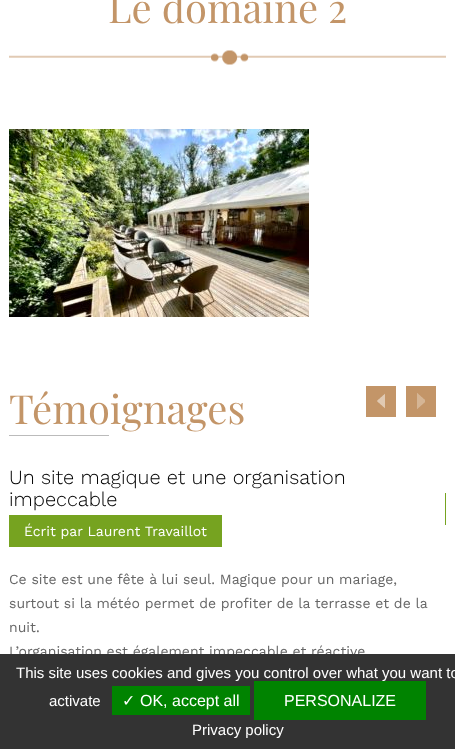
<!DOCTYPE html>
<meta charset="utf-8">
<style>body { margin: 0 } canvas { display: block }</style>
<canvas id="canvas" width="455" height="749"></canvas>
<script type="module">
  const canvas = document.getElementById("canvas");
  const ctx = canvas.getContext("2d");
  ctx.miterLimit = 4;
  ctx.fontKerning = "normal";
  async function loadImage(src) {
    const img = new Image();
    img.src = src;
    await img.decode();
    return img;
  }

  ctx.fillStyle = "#ffffff";
  ctx.fillRect(0, 0, 455, 749);
  ctx.font = "40px Playfair Display";
  ctx.fillStyle = "#c39568";
  ctx.fillText("Le domaine 2", 108, 23);
  ctx.drawImage(await loadImage("img1.png"), 9, 50, 437, 15);
  ctx.drawImage(await loadImage("img2.png"), 9, 129, 300, 188);
  ctx.fillText("Témoignages", 9, 424);
  ctx.fillStyle = "#bbbbbb";
  ctx.fillRect(9, 435, 100, 1);
  ctx.fillStyle = "#c39568";
  ctx.fillRect(366, 386, 30, 31);
  ctx.drawImage(await loadImage("img3.png"), 377, 393, 8, 16);
  ctx.fillRect(406, 386, 30, 31);
  ctx.drawImage(await loadImage("img4.png"), 417, 393, 8, 16);
  ctx.font = "300 20px Work Sans";
  ctx.fillStyle = "#000000";
  ctx.fillText("Un site magique et une organisation", 9, 484);
  ctx.fillText("impeccable", 9, 506);
  ctx.fillStyle = "#76a320";
  ctx.fillRect(9, 515, 213, 32);
  ctx.font = "14px Work Sans";
  ctx.fillStyle = "#ffffff";
  ctx.fillText("Écrit par Laurent Travaillot", 24, 536);
  ctx.fillStyle = "#666666";
  ctx.fillText("Ce site est une fête à lui seul. Magique pour un mariage,", 9, 584);
  ctx.fillText("surtout si la météo permet de profiter de la terrasse et de la", 9, 608);
  ctx.fillText("nuit.", 9, 632);
  ctx.fillText("L’organisation est également impeccable et réactive", 9, 656);
  ctx.fillStyle = "#76a320";
  ctx.fillRect(445, 493, 1, 32);
  ctx.fillStyle = "#333333";
  ctx.fillRect(0, 654, 455, 95);
  ctx.font = "15px Liberation Sans";
  ctx.fillStyle = "#ffffff";
  ctx.fillText("This site uses cookies and gives you control over what you want to", 16, 678);
  ctx.fillText("activate", 49, 706);
  ctx.fillStyle = "#008300";
  ctx.fillRect(112, 686, 138, 29);
  ctx.font = "16px DejaVu Sans";
  ctx.fillStyle = "#ffffff";
  ctx.fillText("✓", 122, 706);
  ctx.font = "16px Liberation Sans";
  ctx.fillText("OK, accept all", 140, 706);
  ctx.fillStyle = "#008300";
  ctx.fillRect(254, 681, 172, 39);
  ctx.fillStyle = "#ffffff";
  ctx.fillText("PERSONALIZE", 284, 706);
  ctx.font = "15px Liberation Sans";
  ctx.fillText("Privacy policy", 192, 735);
</script>
